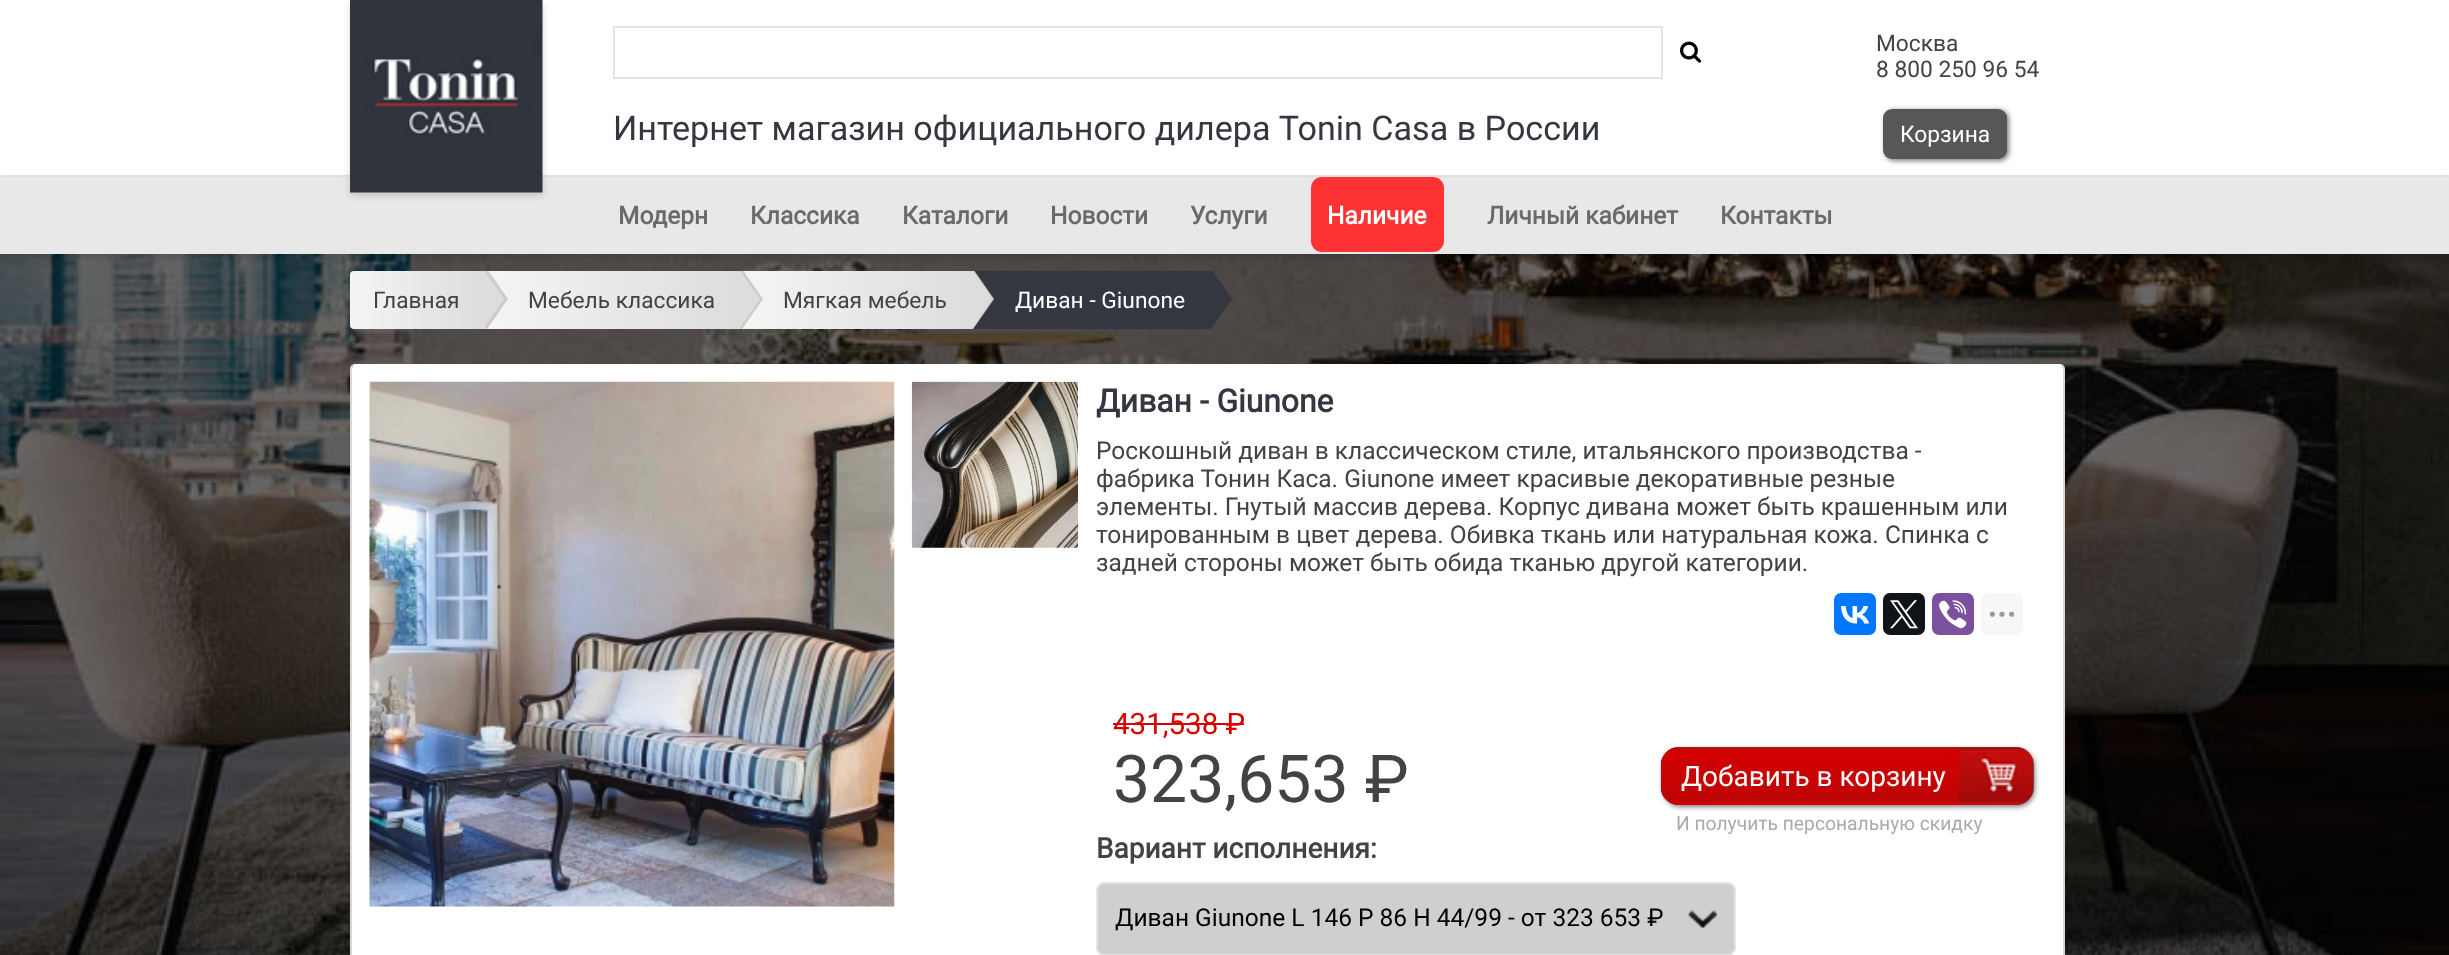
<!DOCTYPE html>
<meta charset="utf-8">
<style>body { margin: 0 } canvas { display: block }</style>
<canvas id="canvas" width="2449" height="955"></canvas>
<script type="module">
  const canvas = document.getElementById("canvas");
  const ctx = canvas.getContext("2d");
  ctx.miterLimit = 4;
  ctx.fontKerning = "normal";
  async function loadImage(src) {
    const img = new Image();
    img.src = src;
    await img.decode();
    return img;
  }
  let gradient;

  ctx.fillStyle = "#ffffff";
  ctx.fillRect(0, 0, 2449, 955);
  ctx.drawImage(await loadImage("img1.png"), 0, 254, 2449, 701);
  ctx.fillStyle = "#e5e5e5";
  ctx.fillRect(0, 175, 2449, 2);
  ctx.fillStyle = "rgba(0, 0, 0, 0.15)";
  ctx.filter = "blur(3.5px)";
  ctx.beginPath();
  ctx.rect(0, 180, 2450, 77);
  ctx.fill();
  ctx.filter = "none";
  ctx.fillStyle = "#e8e8e8";
  ctx.fillRect(0, 177, 2449, 77);
  ctx.fillStyle = "rgba(0, 0, 0, 0.15)";
  ctx.filter = "blur(3.5px)";
  ctx.beginPath();
  ctx.rect(350, 4, 193, 192);
  ctx.fill();
  ctx.filter = "none";
  ctx.drawImage(await loadImage("img2.png"), 350, 0, 193, 193);
  ctx.strokeStyle = "#e4e4e4";
  ctx.lineWidth = 2;
  ctx.strokeRect(614, 27, 1048, 51);
  ctx.drawImage(await loadImage("img3.png"), 1680, 41, 22, 22);
  ctx.font = "22.75px Roboto";
  ctx.fillStyle = "#434343";
  ctx.fillText("Москва", 1876, 51);
  ctx.fillText("8 800 250 96 54", 1876, 77);
  ctx.fillStyle = "rgba(0, 0, 0, 0.5)";
  ctx.filter = "blur(2.5px)";
  ctx.beginPath();
  ctx.roundRect(1885, 110, 124, 51, 9);
  ctx.fill();
  ctx.filter = "none";
  ctx.fillStyle = "#575757";
  ctx.beginPath();
  ctx.roundRect(1883, 109, 124, 50, 9);
  ctx.fill();
  ctx.fillStyle = "#ffffff";
  ctx.fillText("Корзина", 1900, 142);
  ctx.font = "34.1px Roboto";
  ctx.fillStyle = "#34373f";
  ctx.fillText("Интернет магазин официального дилера Tonin Casa в России", 613, 140);
  ctx.font = "bold 24.5px Roboto";
  ctx.fillStyle = "#6a6a6a";
  ctx.fillText("Модерн", 618, 224);
  ctx.fillText("Классика", 750, 224);
  ctx.fillText("Каталоги", 902, 224);
  ctx.fillText("Новости", 1050, 224);
  ctx.fillText("Услуги", 1190, 224);
  ctx.fillStyle = "#ff3333";
  ctx.beginPath();
  ctx.roundRect(1311, 177, 133, 75, 11);
  ctx.fill();
  ctx.fillStyle = "#ffffff";
  ctx.fillText("Наличие", 1327, 224);
  ctx.fillStyle = "#6a6a6a";
  ctx.fillText("Личный кабинет", 1487, 224);
  ctx.fillText("Контакты", 1720, 224);
  gradient = ctx.createLinearGradient(350, 300, 481, 300);
  gradient.addColorStop(0, "#f5f5f5");
  gradient.addColorStop(1, "#dddddd");
  ctx.fillStyle = gradient;
  ctx.beginPath();
  ctx.roundRect(350, 271, 131, 58, [4, 0, 0, 4]);
  ctx.fill();
  gradient = ctx.createLinearGradient(481, 300, 737, 300);
  gradient.addColorStop(0, "#f5f5f5");
  gradient.addColorStop(1, "#dddddd");
  ctx.fillStyle = gradient;
  ctx.fillRect(483, 271, 254, 58);
  ctx.save();
  ctx.beginPath();
  ctx.rect(350, 271, 1383, 58);
  ctx.clip();
  ctx.fillStyle = "#cccccc";
  ctx.beginPath();
  ctx.moveTo(485, 332);
  ctx.lineTo(485, 266);
  ctx.lineTo(508, 299);
  ctx.closePath();
  ctx.fill();
  ctx.fillStyle = "#dddddd";
  ctx.beginPath();
  ctx.moveTo(481, 332);
  ctx.lineTo(481, 266);
  ctx.lineTo(504, 299);
  ctx.closePath();
  ctx.fill();
  ctx.restore();
  ctx.font = "22.75px Roboto";
  ctx.fillStyle = "#434343";
  ctx.fillText("Главная", 373, 308);
  gradient = ctx.createLinearGradient(737, 300, 970, 300);
  gradient.addColorStop(0, "#f5f5f5");
  gradient.addColorStop(1, "#dddddd");
  ctx.fillStyle = gradient;
  ctx.fillRect(739, 271, 231, 58);
  ctx.save();
  ctx.beginPath();
  ctx.rect(350, 271, 1383, 58);
  ctx.clip();
  ctx.fillStyle = "#cccccc";
  ctx.beginPath();
  ctx.moveTo(740, 332);
  ctx.lineTo(740, 266);
  ctx.lineTo(763, 299);
  ctx.closePath();
  ctx.fill();
  ctx.fillStyle = "#dddddd";
  ctx.beginPath();
  ctx.moveTo(737, 332);
  ctx.lineTo(737, 266);
  ctx.lineTo(760, 299);
  ctx.closePath();
  ctx.fill();
  ctx.restore();
  ctx.fillStyle = "#434343";
  ctx.fillText("Мебель классика", 528, 308);
  ctx.fillStyle = "#34373f";
  ctx.fillRect(973, 271, 235, 58);
  ctx.save();
  ctx.beginPath();
  ctx.rect(350, 271, 1383, 58);
  ctx.clip();
  ctx.fillStyle = "#cccccc";
  ctx.beginPath();
  ctx.moveTo(971, 332);
  ctx.lineTo(971, 266);
  ctx.lineTo(994, 299);
  ctx.closePath();
  ctx.fill();
  ctx.fillStyle = "#dddddd";
  ctx.beginPath();
  ctx.moveTo(970, 332);
  ctx.lineTo(970, 266);
  ctx.lineTo(992, 299);
  ctx.closePath();
  ctx.fill();
  ctx.restore();
  ctx.fillStyle = "#434343";
  ctx.fillText("Мягкая мебель", 783, 308);
  ctx.save();
  ctx.beginPath();
  ctx.rect(350, 271, 1383, 58);
  ctx.clip();
  ctx.fillStyle = "#34373f";
  ctx.beginPath();
  ctx.moveTo(1209, 332);
  ctx.lineTo(1209, 266);
  ctx.lineTo(1232, 299);
  ctx.closePath();
  ctx.fill();
  ctx.beginPath();
  ctx.moveTo(1208, 332);
  ctx.lineTo(1208, 266);
  ctx.lineTo(1230, 299);
  ctx.closePath();
  ctx.fill();
  ctx.restore();
  ctx.fillStyle = "#ffffff";
  ctx.fillText("Диван - Giunone", 1015, 308);
  ctx.beginPath();
  ctx.moveTo(355, 364);
  ctx.lineTo(2060, 364);
  ctx.bezierCurveTo(2062, 364, 2063, 366, 2063, 369);
  ctx.lineTo(2063, 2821);
  ctx.bezierCurveTo(2063, 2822, 2062, 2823, 2060, 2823);
  ctx.lineTo(355, 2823);
  ctx.bezierCurveTo(353, 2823, 352, 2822, 352, 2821);
  ctx.lineTo(352, 369);
  ctx.bezierCurveTo(352, 366, 353, 364, 355, 364);
  ctx.closePath();
  ctx.fill();
  ctx.fillStyle = "#d8d8d8";
  ctx.beginPath();
  ctx.moveTo(355, 364);
  ctx.lineTo(2060, 364);
  ctx.bezierCurveTo(2063, 364, 2065, 366, 2065, 369);
  ctx.lineTo(2065, 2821);
  ctx.bezierCurveTo(2065, 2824, 2063, 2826, 2060, 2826);
  ctx.lineTo(355, 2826);
  ctx.bezierCurveTo(352, 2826, 350, 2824, 350, 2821);
  ctx.lineTo(350, 369);
  ctx.bezierCurveTo(350, 366, 352, 364, 355, 364);
  ctx.closePath();
  ctx.moveTo(355, 364);
  ctx.lineTo(2060, 364);
  ctx.bezierCurveTo(2062, 364, 2063, 366, 2063, 369);
  ctx.lineTo(2063, 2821);
  ctx.bezierCurveTo(2063, 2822, 2062, 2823, 2060, 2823);
  ctx.lineTo(355, 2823);
  ctx.bezierCurveTo(353, 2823, 352, 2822, 352, 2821);
  ctx.lineTo(352, 369);
  ctx.bezierCurveTo(352, 366, 353, 364, 355, 364);
  ctx.closePath();
  ctx.fill("evenodd");
  ctx.drawImage(await loadImage("img4.png"), 369, 381, 526, 526);
  ctx.drawImage(await loadImage("img5.png"), 911, 381, 167, 167);
  ctx.font = "bold 31.75px Roboto";
  ctx.fillStyle = "#34373f";
  ctx.fillText("Диван - Giunone", 1096, 412);
  ctx.font = "24.5px Roboto";
  ctx.fillStyle = "#434343";
  ctx.fillText("Роскошный диван в классическом стиле, итальянского производства -", 1096, 459);
  ctx.fillText("фабрика Тонин Каса. Giunone имеет красивые декоративные резные", 1096, 487);
  ctx.fillText("элементы. Гнутый массив дерева. Корпус дивана может быть крашенным или", 1096, 515);
  ctx.fillText("тонированным в цвет дерева. Обивка ткань или натуральная кожа. Спинка с", 1096, 543);
  ctx.fillText("задней стороны может быть обида тканью другой категории.", 1096, 571);
  ctx.fillStyle = "#0077ff";
  ctx.beginPath();
  ctx.roundRect(1834, 593, 42, 42, 7);
  ctx.fill();
  ctx.drawImage(await loadImage("img6.png"), 1841, 606, 29, 18);
  ctx.fillStyle = "#0f1419";
  ctx.beginPath();
  ctx.roundRect(1883, 593, 42, 42, 7);
  ctx.fill();
  ctx.drawImage(await loadImage("img7.png"), 1890, 600, 28, 29);
  ctx.fillStyle = "#7b519d";
  ctx.beginPath();
  ctx.roundRect(1932, 593, 42, 42, 7);
  ctx.fill();
  ctx.drawImage(await loadImage("img8.png"), 1939, 600, 28, 29);
  ctx.fillStyle = "#f7f7f7";
  ctx.beginPath();
  ctx.roundRect(1981, 593, 42, 42, 7);
  ctx.fill();
  ctx.drawImage(await loadImage("img9.png"), 1989, 611, 26, 6);
  ctx.font = "29.5px Roboto";
  ctx.fillStyle = "#da0000";
  ctx.fillText("431,538 ₽", 1113, 734);
  ctx.fillRect(1113, 723, 131, 2);
  ctx.font = "66px Roboto";
  ctx.fillStyle = "#434343";
  ctx.fillText("323,653 ₽", 1113, 802);
  ctx.fillStyle = "rgba(0, 0, 0, 0.5)";
  ctx.filter = "blur(2.5px)";
  ctx.beginPath();
  ctx.roundRect(1663, 749, 372, 58, 18);
  ctx.fill();
  ctx.filter = "none";
  ctx.fillStyle = "#575757";
  ctx.beginPath();
  ctx.roundRect(1661, 747, 373, 58, 18);
  ctx.fill();
  ctx.drawImage(await loadImage("img10.png"), 1660, 747, 374, 58);
  ctx.font = "28px Roboto";
  ctx.fillStyle = "#ffffff";
  ctx.fillText("Добавить в корзину", 1681, 786);
  ctx.font = "19.25px Roboto";
  ctx.fillStyle = "#aaaaaa";
  ctx.fillText("И получить персональную скидку", 1676, 830);
  ctx.font = "bold 28px Roboto";
  ctx.fillStyle = "#434343";
  ctx.fillText("Вариант исполнения:", 1096, 858);
  ctx.fillStyle = "#cfcfcf";
  ctx.beginPath();
  ctx.roundRect(1096, 882, 640, 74, 9);
  ctx.fill();
  ctx.drawImage(await loadImage("img11.png"), 1688, 909, 29, 19);
  ctx.beginPath();
  ctx.roundRect(1097, 883, 638, 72, 8);
  ctx.stroke();
  ctx.font = "24.5px Roboto";
  ctx.fillStyle = "#000000";
  ctx.fillText("Диван Giunone L 146 P 86 H 44/99 - от 323 653 ₽", 1115, 926);
</script>
